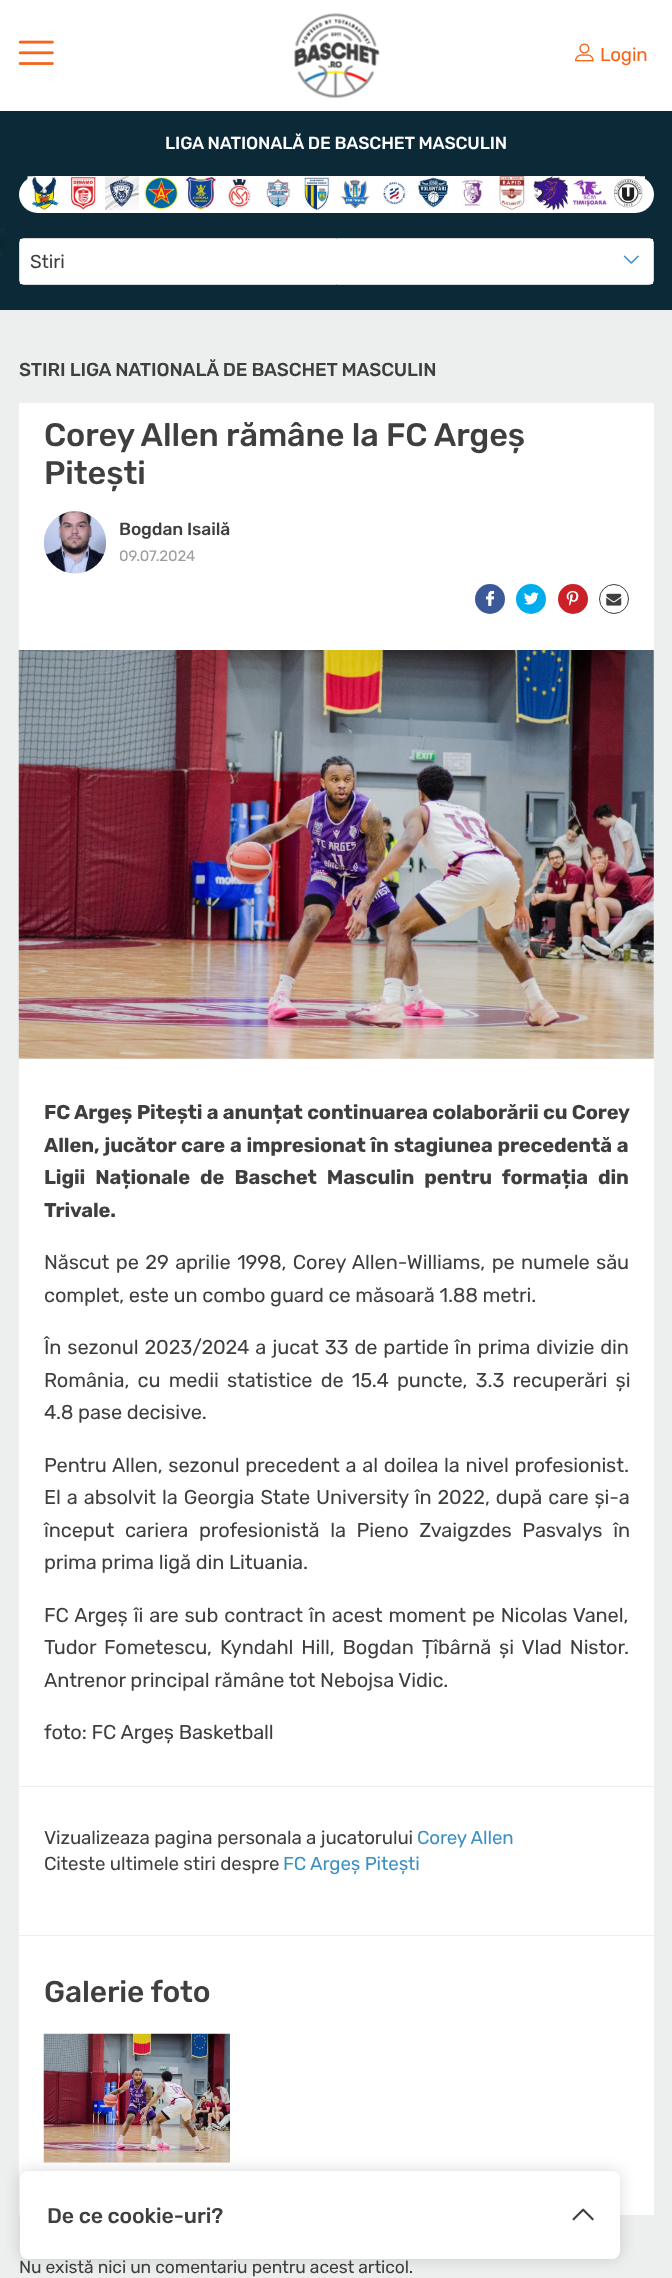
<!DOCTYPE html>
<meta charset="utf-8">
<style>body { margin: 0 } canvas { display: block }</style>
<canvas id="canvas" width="672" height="2278"></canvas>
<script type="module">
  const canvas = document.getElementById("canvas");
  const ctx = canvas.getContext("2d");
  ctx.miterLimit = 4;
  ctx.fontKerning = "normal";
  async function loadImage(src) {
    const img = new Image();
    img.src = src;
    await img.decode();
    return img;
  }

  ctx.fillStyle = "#edefef";
  ctx.fillRect(0, 0, 672, 2278);
  ctx.fillStyle = "#ffffff";
  ctx.fillRect(0, 0, 672, 111);
  ctx.drawImage(await loadImage("img1.png"), 18, 40, 36, 25);
  ctx.drawImage(await loadImage("img2.png"), 294, 13, 86, 85);
  ctx.drawImage(await loadImage("img3.png"), 575, 43, 19, 19);
  ctx.letterSpacing = "-0.12px";
  ctx.font = "18.75px Rubik";
  ctx.fillStyle = "#f6641a";
  ctx.fillText("Login", 600, 61);
  ctx.fillStyle = "#0c2938";
  ctx.fillRect(0, 111, 672, 199);
  ctx.drawImage(await loadImage("img4.png"), 0, 228, 7, 28);
  ctx.font = "500 17.5px Rubik";
  ctx.fillStyle = "#ffffff";
  ctx.fillText("LIGA NATIONALĂ DE BASCHET MASCULIN", 165, 149);
  ctx.beginPath();
  ctx.roundRect(19, 176, 635, 37, 18.5);
  ctx.fill();
  ctx.drawImage(await loadImage("img5.png"), 27, 176, 33, 34);
  ctx.drawImage(await loadImage("img6.png"), 67, 176, 32, 34);
  ctx.drawImage(await loadImage("img7.png"), 105, 176, 34, 34);
  ctx.drawImage(await loadImage("img8.png"), 144, 176, 35, 34);
  ctx.drawImage(await loadImage("img9.png"), 184, 176, 32, 34);
  ctx.drawImage(await loadImage("img10.png"), 228, 176, 23, 33);
  ctx.drawImage(await loadImage("img11.png"), 266, 176, 28, 33);
  ctx.drawImage(await loadImage("img12.png"), 301, 176, 31, 34);
  ctx.drawImage(await loadImage("img13.png"), 340, 179, 30, 30);
  ctx.drawImage(await loadImage("img14.png"), 383, 181, 24, 25);
  ctx.drawImage(await loadImage("img15.png"), 416, 176, 33, 33);
  ctx.drawImage(await loadImage("img16.png"), 461, 178, 22, 30);
  ctx.drawImage(await loadImage("img17.png"), 495, 176, 32, 34);
  ctx.drawImage(await loadImage("img18.png"), 533, 176, 35, 34);
  ctx.drawImage(await loadImage("img19.png"), 572, 176, 35, 33);
  ctx.drawImage(await loadImage("img20.png"), 614, 176, 31, 32);
  ctx.beginPath();
  ctx.roundRect(19.5, 238.5, 634, 46, 4.5);
  ctx.strokeStyle = "#d7d7d9";
  ctx.stroke();
  ctx.fillRect(20, 239, 633, 45);
  ctx.font = "18.75px Rubik";
  ctx.fillStyle = "#3f3f3f";
  ctx.fillText("Stiri", 30, 268);
  ctx.drawImage(await loadImage("img21.png"), 623, 255, 16, 9);
  ctx.font = "500 18.75px Rubik";
  ctx.fillText("STIRI LIGA NATIONALĂ DE BASCHET MASCULIN", 19, 376);
  ctx.fillStyle = "#ffffff";
  ctx.fillRect(19, 403, 635, 1812);
  ctx.font = "500 32.5px Rubik";
  ctx.fillStyle = "#3f3f3f";
  ctx.fillText("Corey Allen rămâne la FC Argeș", 44, 446);
  ctx.fillText("Pitești", 44, 484);
  ctx.drawImage(await loadImage("img22.png"), 43, 511, 64, 63);
  ctx.font = "500 17.5px Rubik";
  ctx.fillText("Bogdan Isailă", 119, 535);
  ctx.font = "15px Rubik";
  ctx.fillStyle = "#9e9e9e";
  ctx.fillText("09.07.2024", 119, 561);
  ctx.fillStyle = "#3b5998";
  ctx.beginPath();
  ctx.arc(490, 599, 15, 0, Math.PI * 2);
  ctx.fill();
  ctx.drawImage(await loadImage("img23.png"), 485, 590, 10, 16);
  ctx.fillStyle = "#00aced";
  ctx.beginPath();
  ctx.arc(531, 599, 15, 0, Math.PI * 2);
  ctx.fill();
  ctx.drawImage(await loadImage("img24.png"), 524, 592, 15, 13);
  ctx.fillStyle = "#cb2027";
  ctx.beginPath();
  ctx.arc(573, 599, 15, 0, Math.PI * 2);
  ctx.fill();
  ctx.drawImage(await loadImage("img25.png"), 566, 590, 13, 16);
  ctx.beginPath();
  ctx.arc(614, 599, 14.5, 0, Math.PI * 2);
  ctx.strokeStyle = "#3f3f3f";
  ctx.stroke();
  ctx.drawImage(await loadImage("img26.png"), 606, 593, 16, 13);
  ctx.drawImage(await loadImage("img27.png"), 18, 650, 636, 409);
  ctx.wordSpacing = "0.25px";
  ctx.font = "bold 20px Rubik";
  ctx.fillStyle = "#3f3f3f";
  ctx.fillText("FC Argeș Pitești a anunțat continuarea colaborării cu Corey", 44, 1119);
  ctx.wordSpacing = "0.75px";
  ctx.fillText("Allen, jucător care a impresionat în stagiunea precedentă a", 44, 1152);
  ctx.wordSpacing = "6px";
  ctx.fillText("Ligii Naționale de Baschet Masculin pentru formația din", 44, 1184);
  ctx.wordSpacing = "0px";
  ctx.fillText("Trivale.", 44, 1217);
  ctx.wordSpacing = "1.75px";
  ctx.font = "20px Rubik";
  ctx.fillText("Născut pe 29 aprilie 1998, Corey Allen-Williams, pe numele său", 44, 1269);
  ctx.wordSpacing = "0px";
  ctx.fillText("complet, este un combo guard ce măsoară 1.88 metri.", 44, 1302);
  ctx.wordSpacing = "1.25px";
  ctx.fillText("În sezonul 2023/2024 a jucat 33 de partide în prima divizie din", 44, 1354);
  ctx.wordSpacing = "3.5px";
  ctx.fillText("România, cu medii statistice de 15.4 puncte, 3.3 recuperări și", 44, 1387);
  ctx.wordSpacing = "0px";
  ctx.fillText("4.8 pase decisive.", 44, 1419);
  ctx.wordSpacing = "1px";
  ctx.fillText("Pentru Allen, sezonul precedent a al doilea la nivel profesionist.", 44, 1472);
  ctx.wordSpacing = "1.25px";
  ctx.fillText("El a absolvit la Georgia State University în 2022, după care și-a", 44, 1504);
  ctx.wordSpacing = "6px";
  ctx.fillText("început cariera profesionistă la Pieno Zvaigzdes Pasvalys în", 44, 1537);
  ctx.wordSpacing = "0px";
  ctx.fillText("prima prima ligă din Lituania.", 44, 1569);
  ctx.wordSpacing = "1.25px";
  ctx.fillText("FC Argeș îi are sub contract în acest moment pe Nicolas Vanel,", 44, 1622);
  ctx.wordSpacing = "3.25px";
  ctx.fillText("Tudor Fometescu, Kyndahl Hill, Bogdan Țîbârnă și Vlad Nistor.", 44, 1654);
  ctx.wordSpacing = "0px";
  ctx.fillText("Antrenor principal rămâne tot Nebojsa Vidic.", 44, 1687);
  ctx.fillText("foto: FC Argeș Basketball", 44, 1739);
  ctx.fillStyle = "#edefef";
  ctx.fillRect(19, 1786, 635, 1);
  ctx.font = "18.75px Rubik";
  ctx.fillStyle = "#3f3f3f";
  ctx.fillText("Vizualizeaza pagina personala a jucatorului", 44, 1844);
  ctx.fillStyle = "#3b90c5";
  ctx.fillText("Corey Allen", 417, 1844);
  ctx.fillStyle = "#3f3f3f";
  ctx.fillText("Citeste ultimele stiri despre", 44, 1870);
  ctx.fillStyle = "#3b90c5";
  ctx.fillText("FC Argeș Pitești", 283, 1870);
  ctx.fillStyle = "#edefef";
  ctx.fillRect(19, 1935, 635, 1);
  ctx.font = "500 30px Rubik";
  ctx.fillStyle = "#3f3f3f";
  ctx.fillText("Galerie foto", 44, 2002);
  ctx.drawImage(await loadImage("img28.png"), 43, 2033, 187, 130);
  ctx.font = "17.5px Rubik";
  ctx.fillText("Nu există nici un comentariu pentru acest articol.", 19, 2273);
  ctx.fillStyle = "rgba(0, 0, 0, 0.15)";
  ctx.filter = "blur(7.5px)";
  ctx.beginPath();
  ctx.roundRect(20, 2171, 600, 88, 8);
  ctx.fill();
  ctx.filter = "none";
  ctx.fillStyle = "#ffffff";
  ctx.beginPath();
  ctx.roundRect(20, 2171, 600, 88, 8);
  ctx.fill();
  ctx.font = "500 21.25px Rubik";
  ctx.fillStyle = "#3f3f3f";
  ctx.fillText("De ce cookie-uri?", 47, 2223);
  ctx.drawImage(await loadImage("img29.png"), 572, 2208, 22, 13);
</script>
